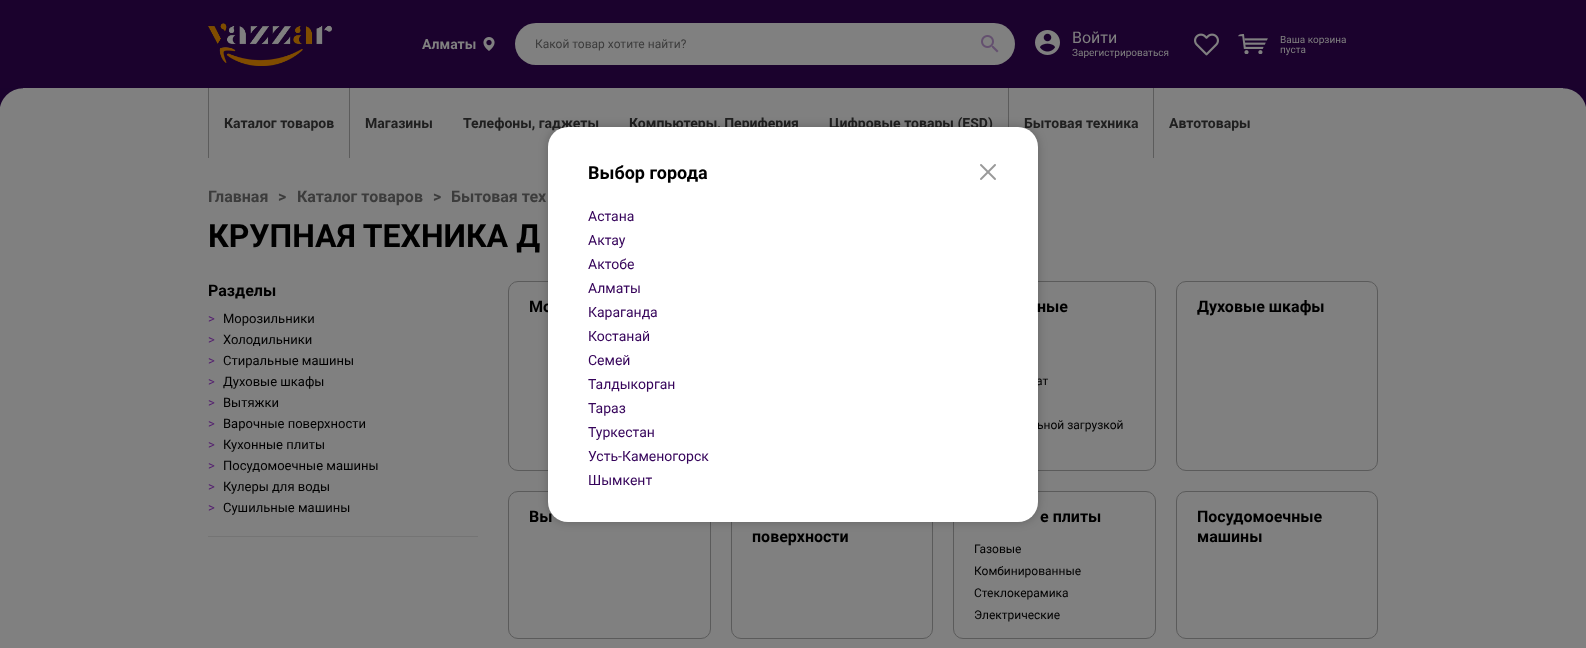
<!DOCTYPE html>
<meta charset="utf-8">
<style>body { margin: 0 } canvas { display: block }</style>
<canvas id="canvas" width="1586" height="648"></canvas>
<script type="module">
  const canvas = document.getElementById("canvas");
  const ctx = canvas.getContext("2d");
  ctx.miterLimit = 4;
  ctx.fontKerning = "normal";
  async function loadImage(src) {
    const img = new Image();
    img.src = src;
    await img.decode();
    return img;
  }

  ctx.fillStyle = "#808080";
  ctx.fillRect(0, 0, 1586, 648);
  ctx.fillStyle = "#1b022d";
  ctx.fillRect(0, 0, 1586, 88);
  ctx.drawImage(await loadImage("img1.png"), 208, 23, 124, 43);
  ctx.drawImage(await loadImage("img2.png"), 483, 37, 12, 14);
  ctx.font = "bold 14px Roboto";
  ctx.fillStyle = "#808080";
  ctx.fillText("Алматы", 422, 49);
  ctx.beginPath();
  ctx.roundRect(515, 23, 500, 42, 21);
  ctx.fill();
  ctx.font = "12px Roboto";
  ctx.fillStyle = "#3c3c3c";
  ctx.fillText("Какой товар хотите найти?", 535, 48);
  ctx.drawImage(await loadImage("img3.png"), 981, 35, 18, 18);
  ctx.drawImage(await loadImage("img4.png"), 1035, 30, 25, 25);
  ctx.font = "16px Roboto";
  ctx.fillStyle = "#808080";
  ctx.fillText("Войти", 1072, 43);
  ctx.font = "10px Roboto";
  ctx.fillText("Зарегистрироваться", 1072, 56);
  ctx.drawImage(await loadImage("img5.png"), 1194, 33, 25, 23);
  ctx.drawImage(await loadImage("img6.png"), 1238, 34, 30, 20);
  ctx.fillText("Ваша корзина", 1280, 43);
  ctx.fillText("пуста", 1280, 53);
  ctx.drawImage(await loadImage("img7.png"), 0, 88, 23, 19);
  ctx.drawImage(await loadImage("img8.png"), 1563, 88, 23, 19);
  ctx.fillStyle = "#5c5c5c";
  ctx.fillRect(349, 88, 1, 70);
  ctx.fillRect(208, 88, 1, 70);
  ctx.font = "bold 14px Roboto";
  ctx.fillStyle = "#202020";
  ctx.fillText("Каталог товаров", 224, 128);
  ctx.fillText("Магазины", 365, 128);
  ctx.fillText("Телефоны, гаджеты", 463, 128);
  ctx.fillText("Компьютеры, Периферия", 629, 128);
  ctx.fillText("Цифровые товары (ESD)", 829, 128);
  ctx.fillStyle = "#5c5c5c";
  ctx.fillRect(1153, 88, 1, 70);
  ctx.fillRect(1008, 88, 1, 39);
  ctx.fillStyle = "#202020";
  ctx.fillText("Бытовая техника", 1024, 128);
  ctx.fillText("Автотовары", 1169, 128);
  ctx.beginPath();
  ctx.roundRect(508.5, 281.5, 202, 189, 9.5);
  ctx.strokeStyle = "#5b5b5b";
  ctx.stroke();
  ctx.beginPath();
  ctx.roundRect(953.5, 281.5, 202, 189, 9.5);
  ctx.stroke();
  ctx.beginPath();
  ctx.roundRect(508.5, 491.5, 202, 147, 9.5);
  ctx.stroke();
  ctx.beginPath();
  ctx.roundRect(731.5, 491.5, 201, 147, 9.5);
  ctx.stroke();
  ctx.beginPath();
  ctx.roundRect(953.5, 491.5, 202, 147, 9.5);
  ctx.stroke();
  ctx.fillStyle = "rgba(0, 0, 0, 0.23)";
  ctx.filter = "blur(5px)";
  ctx.beginPath();
  ctx.roundRect(548, 127, 490, 395, 20);
  ctx.fill();
  ctx.filter = "none";
  ctx.font = "bold 16px Roboto";
  ctx.fillStyle = "#000000";
  ctx.fillText("Мо", 529, 312);
  ctx.font = "12px Roboto";
  ctx.fillText("ат", 1036, 385);
  ctx.fillText("ьной загрузкой", 1037, 429);
  ctx.font = "bold 16px Roboto";
  ctx.fillText("Вы", 529, 522);
  ctx.fillStyle = "#ffffff";
  ctx.beginPath();
  ctx.roundRect(548, 127, 490, 395, 20);
  ctx.fill();
  ctx.font = "bold 18px Roboto";
  ctx.fillStyle = "#000000";
  ctx.fillText("Выбор города", 588, 179);
  ctx.font = "14px Roboto";
  ctx.fillStyle = "#35035a";
  ctx.fillText("Астана", 588, 221);
  ctx.fillText("Актау", 588, 245);
  ctx.fillText("Актобе", 588, 269);
  ctx.fillText("Алматы", 588, 293);
  ctx.fillText("Караганда", 588, 317);
  ctx.fillText("Костанай", 588, 341);
  ctx.fillText("Семей", 588, 365);
  ctx.fillText("Талдыкорган", 588, 389);
  ctx.fillText("Тараз", 588, 413);
  ctx.fillText("Туркестан", 588, 437);
  ctx.fillText("Усть-Каменогорск", 588, 461);
  ctx.fillText("Шымкент", 588, 485);
  ctx.drawImage(await loadImage("img9.png"), 980, 164, 16, 16);
  ctx.font = "bold 16px Roboto";
  ctx.fillStyle = "#3c3c3c";
  ctx.fillText("Главная", 208, 202);
  ctx.fillText(">", 278, 202);
  ctx.fillText("Каталог товаров", 297, 202);
  ctx.fillText(">", 433, 202);
  ctx.fillText("Бытовая тех", 451, 202);
  ctx.font = "bold 32px Roboto";
  ctx.fillStyle = "#000000";
  ctx.fillText("КРУПНАЯ ТЕХНИКА Д", 208, 247);
  ctx.font = "bold 16px Roboto";
  ctx.fillText("Разделы", 208, 296);
  ctx.font = "13px Roboto";
  ctx.fillStyle = "#531c6f";
  ctx.fillText(">", 208, 323);
  ctx.fillStyle = "#000000";
  ctx.fillText("Морозильники", 223, 323);
  ctx.fillStyle = "#531c6f";
  ctx.fillText(">", 208, 344);
  ctx.fillStyle = "#000000";
  ctx.fillText("Холодильники", 223, 344);
  ctx.fillStyle = "#531c6f";
  ctx.fillText(">", 208, 365);
  ctx.fillStyle = "#000000";
  ctx.fillText("Стиральные машины", 223, 365);
  ctx.fillStyle = "#531c6f";
  ctx.fillText(">", 208, 386);
  ctx.fillStyle = "#000000";
  ctx.fillText("Духовые шкафы", 223, 386);
  ctx.fillStyle = "#531c6f";
  ctx.fillText(">", 208, 407);
  ctx.fillStyle = "#000000";
  ctx.fillText("Вытяжки", 223, 407);
  ctx.fillStyle = "#531c6f";
  ctx.fillText(">", 208, 428);
  ctx.fillStyle = "#000000";
  ctx.fillText("Варочные поверхности", 223, 428);
  ctx.fillStyle = "#531c6f";
  ctx.fillText(">", 208, 449);
  ctx.fillStyle = "#000000";
  ctx.fillText("Кухонные плиты", 223, 449);
  ctx.fillStyle = "#531c6f";
  ctx.fillText(">", 208, 470);
  ctx.fillStyle = "#000000";
  ctx.fillText("Посудомоечные машины", 223, 470);
  ctx.fillStyle = "#531c6f";
  ctx.fillText(">", 208, 491);
  ctx.fillStyle = "#000000";
  ctx.fillText("Кулеры для воды", 223, 491);
  ctx.fillStyle = "#531c6f";
  ctx.fillText(">", 208, 512);
  ctx.fillStyle = "#000000";
  ctx.fillText("Сушильные машины", 223, 512);
  ctx.fillStyle = "#747474";
  ctx.fillRect(208, 536, 270, 1);
  ctx.font = "bold 16px Roboto";
  ctx.fillStyle = "#000000";
  ctx.fillText("ные", 1037, 312);
  ctx.beginPath();
  ctx.roundRect(1176.5, 281.5, 201, 189, 9.5);
  ctx.stroke();
  ctx.fillText("Духовые шкафы", 1197, 312);
  ctx.fillText("поверхности", 752, 542);
  ctx.fillText("е плиты", 1040, 522);
  ctx.font = "12px Roboto";
  ctx.fillText("Газовые", 974, 553);
  ctx.fillText("Комбинированные", 974, 575);
  ctx.fillText("Стеклокерамика", 974, 597);
  ctx.fillText("Электрические", 974, 619);
  ctx.beginPath();
  ctx.roundRect(1176.5, 491.5, 201, 147, 9.5);
  ctx.stroke();
  ctx.font = "bold 16px Roboto";
  ctx.fillText("Посудомоечные", 1197, 522);
  ctx.fillText("машины", 1197, 542);
</script>
